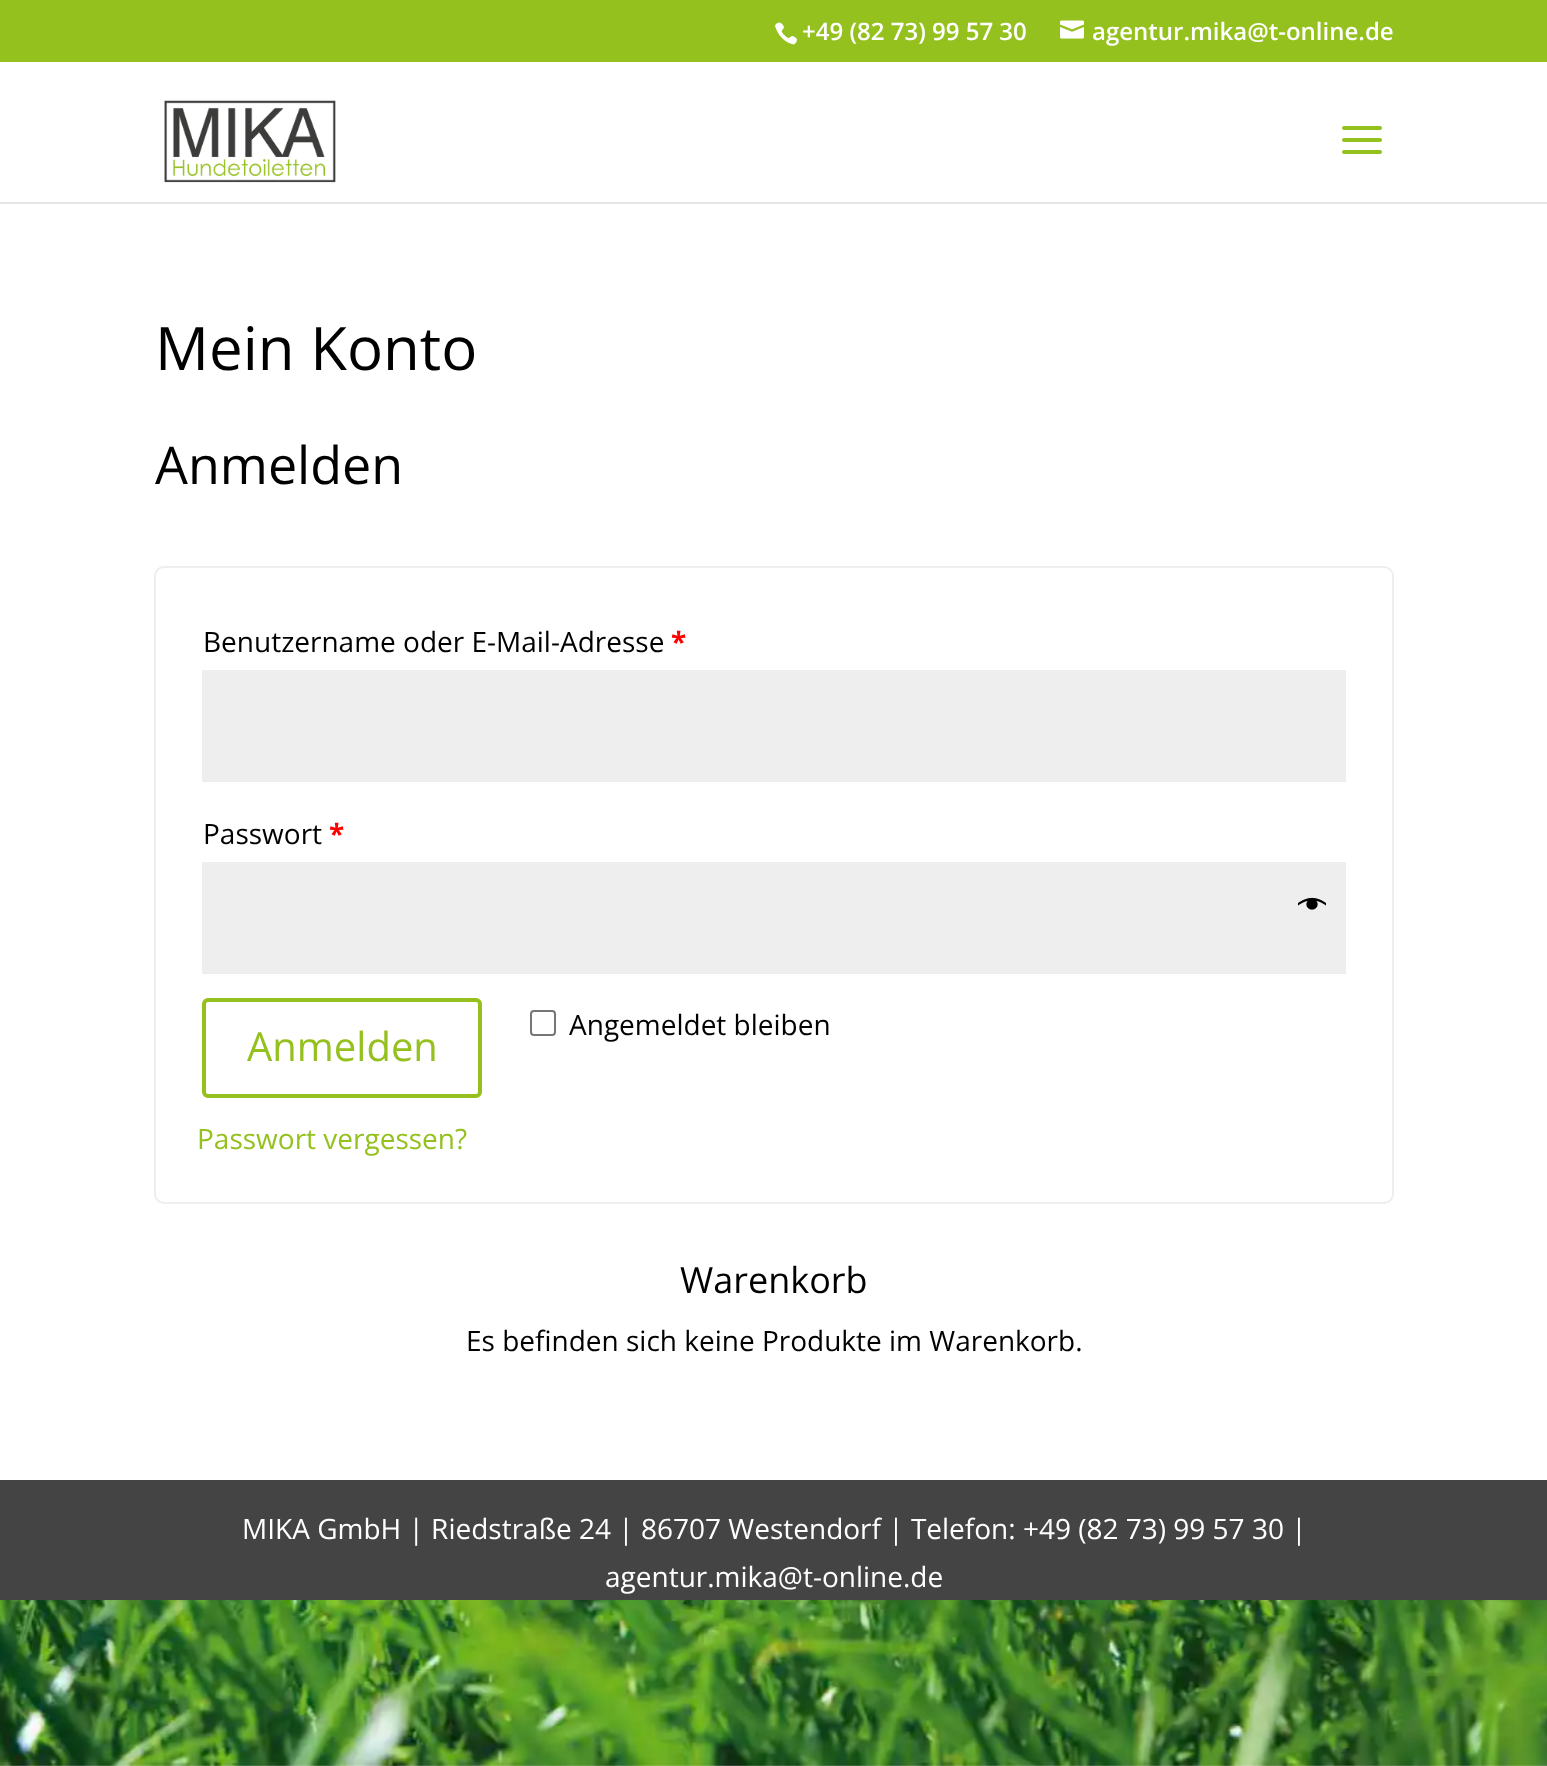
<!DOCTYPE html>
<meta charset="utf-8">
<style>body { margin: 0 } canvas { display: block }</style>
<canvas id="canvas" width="1547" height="1766"></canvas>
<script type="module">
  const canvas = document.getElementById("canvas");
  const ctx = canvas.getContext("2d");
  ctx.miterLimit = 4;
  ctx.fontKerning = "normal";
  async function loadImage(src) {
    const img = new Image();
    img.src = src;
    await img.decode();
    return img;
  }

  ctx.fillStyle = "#ffffff";
  ctx.fillRect(0, 0, 1547, 1766);
  ctx.drawImage(await loadImage("img1.png"), 0, 1600, 1547, 166);
  ctx.fillStyle = "#95c11f";
  ctx.fillRect(0, 0, 1547, 62);
  ctx.drawImage(await loadImage("img2.png"), 775, 22, 22, 23);
  ctx.font = "600 24px Open Sans";
  ctx.fillStyle = "#ffffff";
  ctx.fillText("+49 (82 73) 99 57 30", 802, 40);
  ctx.drawImage(await loadImage("img3.png"), 1060, 20, 24, 19);
  ctx.fillText("agentur.mika@t-online.de", 1092, 40);
  ctx.fillStyle = "#e6e6e6";
  ctx.fillRect(0, 202, 1547, 2);
  ctx.drawImage(await loadImage("img4.png"), 164, 100, 172, 83);
  ctx.drawImage(await loadImage("img5.png"), 1342, 126, 40, 28);
  ctx.font = "60px Open Sans";
  ctx.fillStyle = "#000000";
  ctx.fillText("Mein Konto", 155, 370);
  ctx.font = "52px Open Sans";
  ctx.fillText("Anmelden", 155, 484);
  ctx.beginPath();
  ctx.roundRect(155, 567, 1238, 636, 9);
  ctx.strokeStyle = "#eeeeee";
  ctx.lineWidth = 2;
  ctx.stroke();
  ctx.font = "28px Open Sans";
  ctx.fillText("Benutzername oder E-Mail-Adresse", 203, 652);
  ctx.font = "bold 28px Open Sans";
  ctx.fillStyle = "#ff0000";
  ctx.fillText("*", 671, 652);
  ctx.fillStyle = "#eeeeee";
  ctx.fillRect(202, 670, 1144, 112);
  ctx.font = "28px Open Sans";
  ctx.fillStyle = "#000000";
  ctx.fillText("Passwort", 203, 844);
  ctx.font = "bold 28px Open Sans";
  ctx.fillStyle = "#ff0000";
  ctx.fillText("*", 329, 844);
  ctx.fillStyle = "#eeeeee";
  ctx.fillRect(202, 862, 1144, 112);
  ctx.drawImage(await loadImage("img6.png"), 1298, 897, 28, 13);
  ctx.beginPath();
  ctx.roundRect(204, 1000, 276, 96, 4);
  ctx.strokeStyle = "#95c11f";
  ctx.lineWidth = 4;
  ctx.stroke();
  ctx.font = "40px Open Sans";
  ctx.fillStyle = "#95c11f";
  ctx.fillText("Anmelden", 247, 1061);
  ctx.beginPath();
  ctx.roundRect(531, 1011, 24, 24, 3);
  ctx.strokeStyle = "#767676";
  ctx.lineWidth = 2;
  ctx.stroke();
  ctx.font = "28px Open Sans";
  ctx.fillStyle = "#000000";
  ctx.fillText("Angemeldet bleiben", 569, 1035);
  ctx.fillStyle = "#95c11f";
  ctx.fillText("Passwort vergessen?", 197, 1149);
  ctx.font = "36px Open Sans";
  ctx.fillStyle = "#000000";
  ctx.fillText("Warenkorb", 680, 1293);
  ctx.font = "28px Open Sans";
  ctx.fillText("Es befinden sich keine Produkte im Warenkorb.", 466, 1351);
  ctx.fillStyle = "#444444";
  ctx.fillRect(0, 1480, 1547, 120);
  ctx.fillStyle = "#ffffff";
  ctx.fillText("MIKA GmbH | Riedstraße 24 | 86707 Westendorf | Telefon: +49 (82 73) 99 57 30 |", 242, 1539);
  ctx.fillText("agentur.mika@t-online.de", 605, 1587);
</script>
